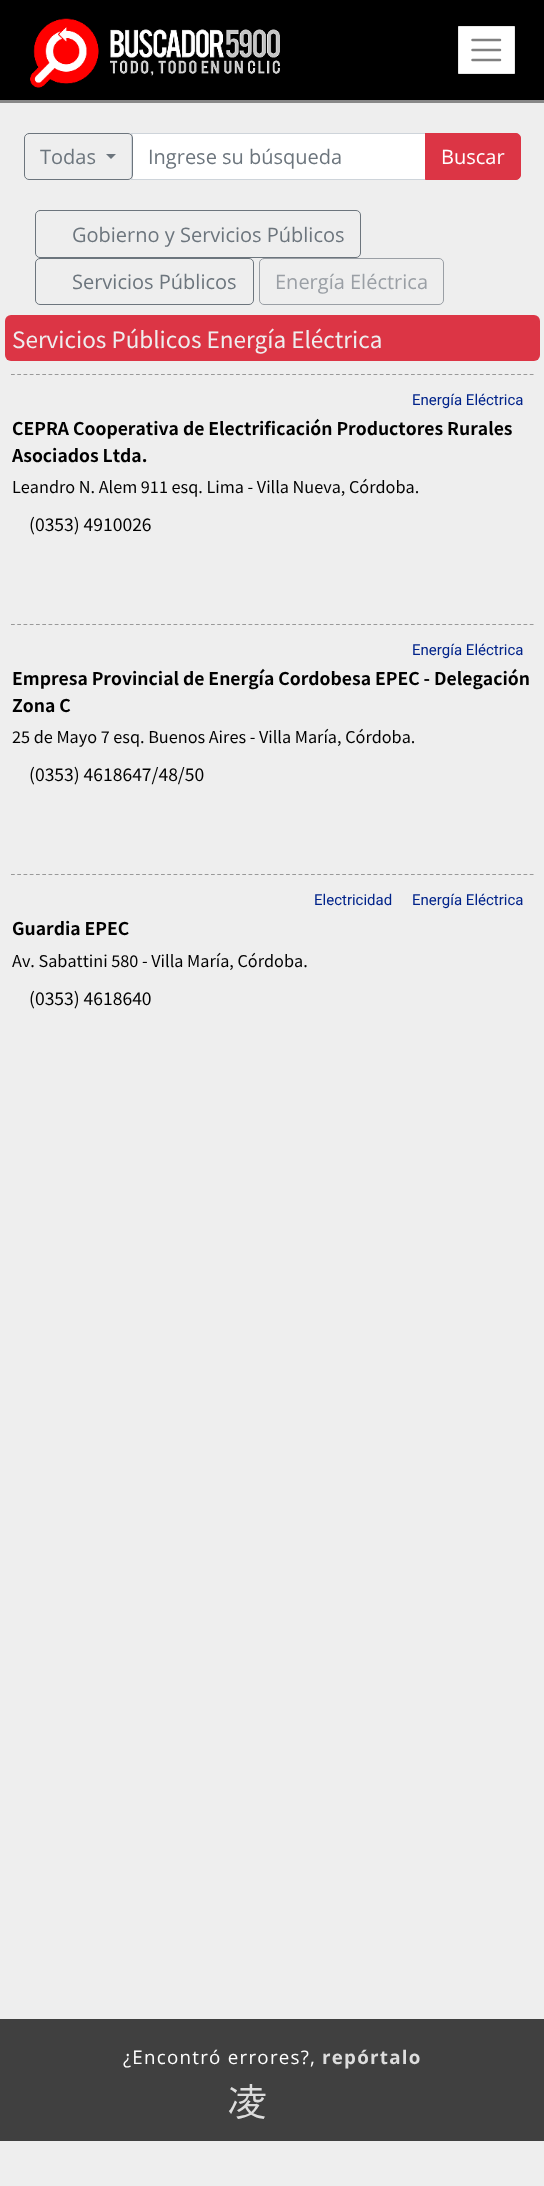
<!DOCTYPE html>
<meta charset="utf-8">
<style>body { margin: 0 } canvas { display: block }</style>
<canvas id="canvas" width="544" height="2186"></canvas>
<script type="module">
  const canvas = document.getElementById("canvas");
  const ctx = canvas.getContext("2d");
  ctx.miterLimit = 4;
  ctx.fontKerning = "none";
  async function loadImage(src) {
    const img = new Image();
    img.src = src;
    await img.decode();
    return img;
  }

  ctx.fillStyle = "#eeeeee";
  ctx.fillRect(0, 0, 544, 2186);
  ctx.fillStyle = "#000000";
  ctx.fillRect(0, 0, 544, 100);
  ctx.fillStyle = "#878787";
  ctx.fillRect(0, 100, 544, 3);
  ctx.drawImage(await loadImage("img1.png"), 30, 18, 250, 70);
  ctx.fillStyle = "#ffffff";
  ctx.beginPath();
  ctx.rect(458.5, 26.5, 56, 47);
  ctx.fill();
  ctx.strokeStyle = "#e6e6e6";
  ctx.stroke();
  ctx.beginPath();
  ctx.moveTo(472.5, 40);
  ctx.lineTo(500, 40);
  ctx.moveTo(472.5, 50);
  ctx.lineTo(500, 50);
  ctx.moveTo(472.5, 60);
  ctx.lineTo(500, 60);
  ctx.strokeStyle = "#808080";
  ctx.lineWidth = 2.5;
  ctx.lineCap = "round";
  ctx.stroke();
  ctx.fillRect(133, 134, 292, 45);
  ctx.strokeStyle = "#ced4da";
  ctx.lineWidth = 1;
  ctx.strokeRect(131.5, 133.5, 294, 46);
  ctx.beginPath();
  ctx.roundRect(24.5, 133.5, 108, 46, 4.5);
  ctx.strokeStyle = "#6c757d";
  ctx.stroke();
  ctx.font = "20px Open Sans";
  ctx.fillStyle = "#6c757d";
  ctx.fillText("Todas", 40, 164);
  ctx.beginPath();
  ctx.moveTo(106, 154);
  ctx.lineTo(116, 154);
  ctx.lineTo(111, 159);
  ctx.closePath();
  ctx.fill();
  ctx.fillText("Ingrese su búsqueda", 148, 164);
  ctx.fillStyle = "#dc3545";
  ctx.beginPath();
  ctx.roundRect(425.5, 133.5, 95, 46, [0, 4.5, 4.5, 0]);
  ctx.fill();
  ctx.strokeStyle = "#dc3545";
  ctx.stroke();
  ctx.fillStyle = "#ffffff";
  ctx.fillText("Buscar", 441, 164);
  ctx.beginPath();
  ctx.roundRect(35.5, 210.5, 325, 47, 4.5);
  ctx.strokeStyle = "#6c757d";
  ctx.stroke();
  ctx.fillStyle = "#6c757d";
  ctx.fillText("Gobierno y Servicios Públicos", 72, 242);
  ctx.beginPath();
  ctx.roundRect(35.5, 258.5, 218, 46, 4.5);
  ctx.stroke();
  ctx.fillText("Servicios Públicos", 72, 289);
  ctx.beginPath();
  ctx.roundRect(259.5, 258.5, 184, 46, 4.5);
  ctx.strokeStyle = "#9a9fa5";
  ctx.stroke();
  ctx.fillStyle = "#9a9fa5";
  ctx.fillText("Energía Eléctrica", 275, 289);
  ctx.fillStyle = "#dc3545";
  ctx.beginPath();
  ctx.roundRect(5, 315, 535, 46, 6);
  ctx.fill();
  ctx.font = "22.5px Noto Sans JP";
  ctx.fillStyle = "#eeeeee";
  ctx.fillText("Servicios Públicos Energía Eléctrica", 12, 348);
  ctx.beginPath();
  ctx.moveTo(11, 374.5);
  ctx.lineTo(534, 374.5);
  ctx.strokeStyle = "#999999";
  ctx.lineWidth = 1.2;
  ctx.lineCap = "butt";
  ctx.setLineDash([3.75, 2.5]);
  ctx.stroke();
  ctx.font = "15px Roboto";
  ctx.fillStyle = "#00238a";
  ctx.fillText("Energía Eléctrica", 412, 405);
  ctx.font = "bold 17.5px Noto Sans JP";
  ctx.fillStyle = "#000000";
  ctx.fillText("CEPRA Cooperativa de Electrificación Productores Rurales", 12, 435);
  ctx.fillText("Asociados Ltda.", 12, 462);
  ctx.font = "16.25px Noto Sans JP";
  ctx.fillText("Leandro N. Alem 911 esq. Lima - Villa Nueva, Córdoba.", 12, 493);
  ctx.font = "17.5px Noto Sans JP";
  ctx.fillText("(0353) 4910026", 29, 531);
  ctx.beginPath();
  ctx.moveTo(11, 624.5);
  ctx.lineTo(534, 624.5);
  ctx.stroke();
  ctx.font = "15px Roboto";
  ctx.fillStyle = "#00238a";
  ctx.fillText("Energía Eléctrica", 412, 655);
  ctx.font = "bold 17.5px Noto Sans JP";
  ctx.fillStyle = "#000000";
  ctx.fillText("Empresa Provincial de Energía Cordobesa EPEC - Delegación", 12, 685);
  ctx.fillText("Zona C", 12, 712);
  ctx.font = "16.25px Noto Sans JP";
  ctx.fillText("25 de Mayo 7 esq. Buenos Aires - Villa María, Córdoba.", 12, 743);
  ctx.font = "17.5px Noto Sans JP";
  ctx.fillText("(0353) 4618647/48/50", 29, 781);
  ctx.beginPath();
  ctx.moveTo(11, 874.5);
  ctx.lineTo(534, 874.5);
  ctx.stroke();
  ctx.font = "15px Roboto";
  ctx.fillStyle = "#00238a";
  ctx.fillText("Electricidad", 314, 905);
  ctx.fillText("Energía Eléctrica", 412, 905);
  ctx.font = "bold 17.5px Noto Sans JP";
  ctx.fillStyle = "#000000";
  ctx.fillText("Guardia EPEC", 12, 935);
  ctx.font = "16.25px Noto Sans JP";
  ctx.fillText("Av. Sabattini 580 - Villa María, Córdoba.", 12, 967);
  ctx.font = "17.5px Noto Sans JP";
  ctx.fillText("(0353) 4618640", 29, 1005);
  ctx.fillStyle = "#404040";
  ctx.fillRect(0, 2019, 544, 122);
  ctx.letterSpacing = "1.25px";
  ctx.font = "18.75px Open Sans";
  ctx.fillStyle = "#ffffff";
  ctx.fillText("¿Encontró errores?,", 123, 2064);
  ctx.font = "bold 18.75px Open Sans";
  ctx.fillStyle = "#dddddd";
  ctx.fillText("repórtalo", 322, 2064);
  ctx.letterSpacing = "0px";
  ctx.font = "500 40px WenQuanYi Zen Hei";
  ctx.fillText("凌", 227, 2114);
</script>
